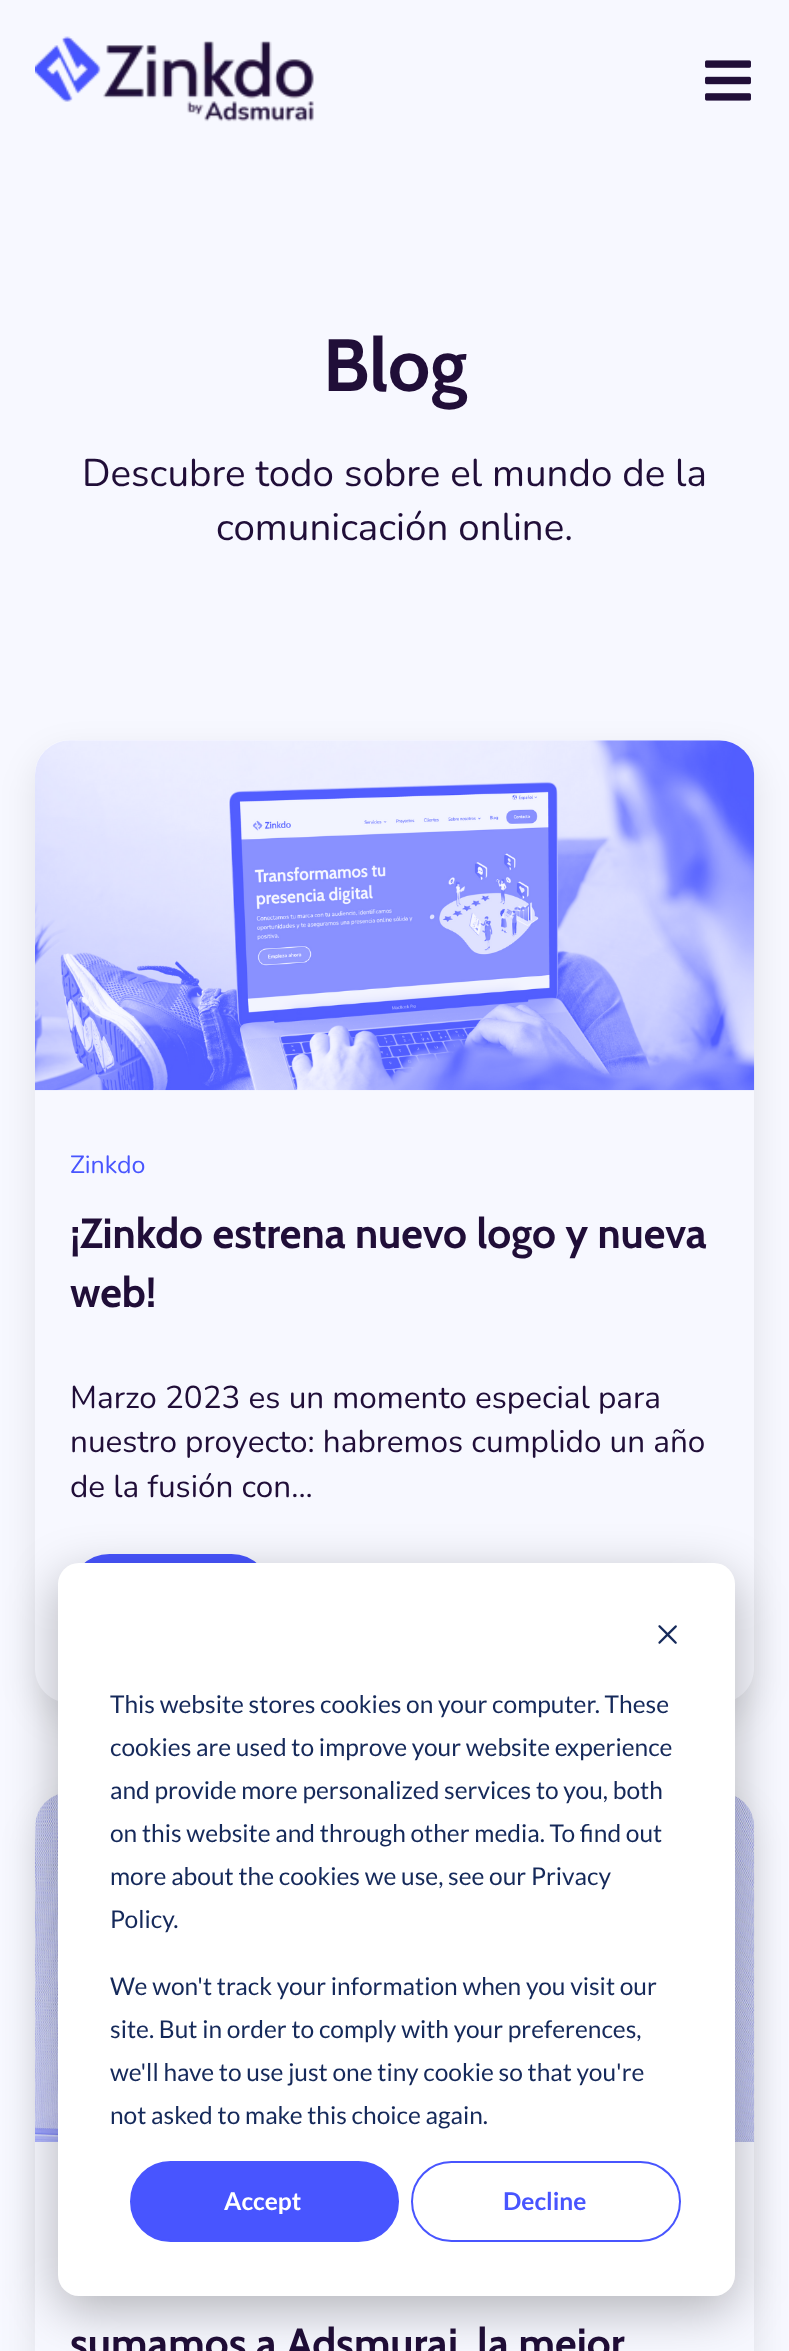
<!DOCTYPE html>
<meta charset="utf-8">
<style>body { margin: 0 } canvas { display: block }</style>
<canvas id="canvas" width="789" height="2351"></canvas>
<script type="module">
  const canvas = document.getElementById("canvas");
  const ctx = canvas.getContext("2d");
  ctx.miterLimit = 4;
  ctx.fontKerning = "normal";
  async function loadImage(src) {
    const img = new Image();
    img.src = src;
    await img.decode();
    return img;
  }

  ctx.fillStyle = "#f7f8ff";
  ctx.fillRect(0, 0, 789, 2351);
  ctx.drawImage(await loadImage("img1.png"), 35, 36, 279, 86);
  ctx.drawImage(await loadImage("img2.png"), 705, 60, 46, 41);
  ctx.font = "bold 74px Cabin";
  ctx.fillStyle = "#200e38";
  ctx.fillText("Blog", 323, 391);
  ctx.font = "38.5px Nunito";
  ctx.fillText("Descubre todo sobre el mundo de la", 82, 486);
  ctx.fillText("comunicación online.", 216, 540);
  ctx.save();
  ctx.beginPath();
  ctx.moveTo(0, 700);
  ctx.lineTo(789, 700);
  ctx.lineTo(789, 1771);
  ctx.lineTo(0, 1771);
  ctx.closePath();
  ctx.moveTo(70, 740);
  ctx.lineTo(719, 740);
  ctx.bezierCurveTo(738.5, 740, 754, 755.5, 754, 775);
  ctx.lineTo(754, 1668);
  ctx.bezierCurveTo(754, 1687.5, 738.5, 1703, 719, 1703);
  ctx.lineTo(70, 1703);
  ctx.bezierCurveTo(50.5, 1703, 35, 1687.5, 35, 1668);
  ctx.lineTo(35, 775);
  ctx.bezierCurveTo(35, 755.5, 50.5, 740, 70, 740);
  ctx.closePath();
  ctx.clip("evenodd");
  ctx.fillStyle = "rgba(0, 0, 0, 0.08)";
  ctx.filter = "blur(16.5px)";
  ctx.beginPath();
  ctx.roundRect(32, 751, 726, 969, 39);
  ctx.fill();
  ctx.filter = "none";
  ctx.restore();
  ctx.drawImage(await loadImage("img3.png"), 35, 740, 720, 351);
  ctx.font = "25px Nunito";
  ctx.fillStyle = "#4855ff";
  ctx.fillText("Zinkdo", 70, 1173);
  ctx.font = "bold 42px Cabin";
  ctx.fillStyle = "#200e38";
  ctx.fillText("¡Zinkdo estrena nuevo logo y nueva", 70, 1248);
  ctx.fillText("web!", 70, 1307);
  ctx.font = "31.5px Nunito";
  ctx.fillText("Marzo 2023 es un momento especial para", 70, 1408);
  ctx.fillText("nuestro proyecto: habremos cumplido un año", 70, 1452);
  ctx.fillText("de la fusión con...", 70, 1497);
  ctx.fillStyle = "#4855ff";
  ctx.beginPath();
  ctx.roundRect(72.5, 1556.5, 196, 74, 37);
  ctx.fill();
  ctx.strokeStyle = "#4855ff";
  ctx.lineWidth = 5;
  ctx.stroke();
  ctx.save();
  ctx.beginPath();
  ctx.moveTo(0, 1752);
  ctx.lineTo(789, 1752);
  ctx.lineTo(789, 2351);
  ctx.lineTo(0, 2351);
  ctx.closePath();
  ctx.moveTo(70, 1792);
  ctx.lineTo(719, 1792);
  ctx.bezierCurveTo(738.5, 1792, 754, 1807.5, 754, 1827);
  ctx.lineTo(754, 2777);
  ctx.bezierCurveTo(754, 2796.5, 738.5, 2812, 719, 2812);
  ctx.lineTo(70, 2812);
  ctx.bezierCurveTo(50.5, 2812, 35, 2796.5, 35, 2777);
  ctx.lineTo(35, 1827);
  ctx.bezierCurveTo(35, 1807.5, 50.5, 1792, 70, 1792);
  ctx.closePath();
  ctx.clip("evenodd");
  ctx.fillStyle = "rgba(0, 0, 0, 0.08)";
  ctx.filter = "blur(16.5px)";
  ctx.beginPath();
  ctx.roundRect(32, 1803, 726, 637, 39);
  ctx.fill();
  ctx.filter = "none";
  ctx.restore();
  ctx.drawImage(await loadImage("img4.png"), 35, 1794, 720, 348);
  ctx.font = "bold 42px Cabin";
  ctx.fillStyle = "#200e38";
  ctx.fillText("sumamos a Adsmurai, la mejor", 70, 2358);
  ctx.fillStyle = "rgba(0, 0, 0, 0.28)";
  ctx.filter = "blur(24.5px)";
  ctx.beginPath();
  ctx.roundRect(58, 1577, 677, 733, 21);
  ctx.fill();
  ctx.filter = "none";
  ctx.fillStyle = "#ffffff";
  ctx.beginPath();
  ctx.roundRect(58, 1563, 677, 733, 21);
  ctx.fill();
  ctx.drawImage(await loadImage("img5.png"), 658, 1625, 19, 19);
  ctx.font = "24.5px Lato";
  ctx.fillStyle = "#15295a";
  ctx.fillText("This website stores cookies on your computer. These", 110, 1713);
  ctx.fillText("cookies are used to improve your website experience", 110, 1756);
  ctx.fillText("and provide more personalized services to you, both", 110, 1799);
  ctx.fillText("on this website and through other media. To find out", 110, 1842);
  ctx.fillText("more about the cookies we use, see our Privacy", 110, 1885);
  ctx.fillText("Policy.", 110, 1928);
  ctx.fillText("We won't track your information when you visit our", 110, 1995);
  ctx.fillText("site. But in order to comply with your preferences,", 110, 2038);
  ctx.fillText("we'll have to use just one tiny cookie so that you're", 110, 2081);
  ctx.fillText("not asked to make this choice again.", 110, 2124);
  ctx.fillStyle = "#4855ff";
  ctx.beginPath();
  ctx.roundRect(131, 2162, 267, 79, 39.5);
  ctx.fill();
  ctx.lineWidth = 2;
  ctx.stroke();
  ctx.font = "bold 24.5px Lato";
  ctx.fillStyle = "#ffffff";
  ctx.fillText("Accept", 224, 2210);
  ctx.beginPath();
  ctx.roundRect(412, 2162, 268, 79, 39.5);
  ctx.stroke();
  ctx.fillStyle = "#4855ff";
  ctx.fillText("Decline", 503, 2210);
</script>
